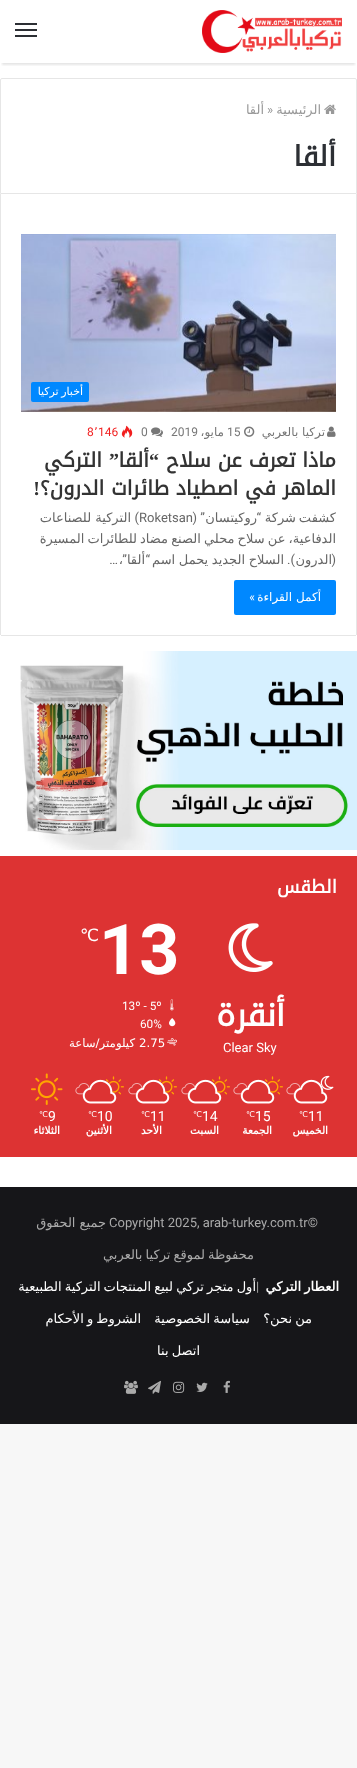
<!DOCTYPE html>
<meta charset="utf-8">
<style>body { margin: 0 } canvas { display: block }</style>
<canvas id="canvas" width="357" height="1768"></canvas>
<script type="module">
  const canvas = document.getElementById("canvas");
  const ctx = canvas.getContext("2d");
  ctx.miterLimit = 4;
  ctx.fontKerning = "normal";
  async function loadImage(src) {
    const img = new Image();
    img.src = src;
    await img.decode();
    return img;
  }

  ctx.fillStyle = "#f7f7f7";
  ctx.fillRect(0, 0, 357, 1768);
  ctx.fillStyle = "#ffffff";
  ctx.fillRect(0, 0, 357, 1187);
  ctx.save();
  ctx.beginPath();
  ctx.rect(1, 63, 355, 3);
  ctx.clip();
  ctx.fillStyle = "rgba(0, 0, 0, 0.1)";
  ctx.filter = "blur(1px)";
  ctx.beginPath();
  ctx.rect(2, 6, 353, 59);
  ctx.fill();
  ctx.filter = "none";
  ctx.restore();
  ctx.drawImage(await loadImage("img1.png"), 202, 10, 140, 43);
  ctx.fillStyle = "#2c2f34";
  ctx.fillRect(15, 29, 22, 2);
  ctx.fillRect(15, 23, 22, 2);
  ctx.fillRect(15, 35, 22, 2);
  ctx.beginPath();
  ctx.roundRect(0.5, 78.5, 356, 115, [1.5, 1.5, 0, 0]);
  ctx.strokeStyle = "#e6e6e6";
  ctx.stroke();
  ctx.drawImage(await loadImage("img2.png"), 324, 104, 12, 10);
  ctx.direction = "rtl";
  ctx.font = "13px DejaVu Sans";
  ctx.fillStyle = "#999999";
  ctx.fillText("الرئيسية", 321, 114);
  ctx.direction = "ltr";
  ctx.font = "13px Roboto";
  ctx.fillText("»", 267, 114);
  ctx.direction = "rtl";
  ctx.font = "13px DejaVu Sans";
  ctx.fillText("ألقا", 264, 114);
  ctx.font = "bold 28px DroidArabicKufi";
  ctx.fillStyle = "#2c2f34";
  ctx.fillText("ألقا", 336, 166);
  ctx.fillStyle = "#e6e6e6";
  ctx.fillRect(356, 194, 1, 441);
  ctx.fillRect(1, 635, 355, 1);
  ctx.fillRect(0, 194, 1, 441);
  ctx.drawImage(await loadImage("img3.png"), 21, 234, 315, 178);
  ctx.fillStyle = "#0088ff";
  ctx.beginPath();
  ctx.roundRect(31, 382, 58, 20, 2);
  ctx.fill();
  ctx.wordSpacing = "-1px";
  ctx.font = "11px DejaVu Sans";
  ctx.fillStyle = "#ffffff";
  ctx.fillText("أخبار تركيا", 83, 395);
  ctx.drawImage(await loadImage("img4.png"), 327, 426, 9, 11);
  ctx.wordSpacing = "0px";
  ctx.font = "12px DejaVu Sans";
  ctx.fillStyle = "#777777";
  ctx.fillText("تركيا بالعربي", 325, 436);
  ctx.drawImage(await loadImage("img5.png"), 244, 426, 11, 11);
  ctx.direction = "ltr";
  ctx.font = "12px Roboto";
  ctx.fillText("15", 227, 436);
  ctx.direction = "rtl";
  ctx.font = "12px DejaVu Sans";
  ctx.fillText("مايو،", 224, 436);
  ctx.direction = "ltr";
  ctx.font = "12px Roboto";
  ctx.fillText("2019", 171, 436);
  ctx.drawImage(await loadImage("img6.png"), 151, 427, 12, 10);
  ctx.fillText("0", 141, 436);
  ctx.drawImage(await loadImage("img7.png"), 121, 425, 12, 13);
  ctx.fillStyle = "#f11e1e";
  ctx.fillText("146", 98, 436);
  ctx.font = "12px DejaVu Sans";
  ctx.fillText("٬", 94, 436);
  ctx.font = "12px Roboto";
  ctx.fillText("8", 87, 436);
  ctx.direction = "rtl";
  ctx.font = "bold 20px DroidArabicKufi";
  ctx.fillStyle = "#333333";
  ctx.fillText("ماذا تعرف عن سلاح", 336, 467);
  ctx.font = "bold 20px Liberation Serif";
  ctx.fillText("“", 159, 467);
  ctx.font = "bold 20px DroidArabicKufi";
  ctx.fillText("ألقا", 149, 467);
  ctx.font = "bold 20px Liberation Serif";
  ctx.fillText("”", 119, 467);
  ctx.font = "bold 20px DroidArabicKufi";
  ctx.fillText("التركي", 102, 467);
  ctx.fillText("الماهر في اصطياد طائرات الدرون؟", 336, 495);
  ctx.font = "bold 20px Liberation Serif";
  ctx.fillText("!", 40, 495);
  ctx.font = "13px DejaVu Sans";
  ctx.fillStyle = "#666666";
  ctx.fillText("كشفت", 336, 522);
  ctx.fillText("شركة", 296, 522);
  ctx.font = "13px Roboto";
  ctx.fillText("“", 261, 522);
  ctx.font = "13px DejaVu Sans";
  ctx.fillText("روكيتسان", 257, 522);
  ctx.font = "13px Roboto";
  ctx.fillText("” (", 205, 522);
  ctx.direction = "ltr";
  ctx.fillText("Roketsan", 139, 522);
  ctx.direction = "rtl";
  ctx.fillText(")", 139, 522);
  ctx.font = "13px DejaVu Sans";
  ctx.fillText("التركية للصناعات", 131, 522);
  ctx.wordSpacing = "-1px";
  ctx.fillText("الدفاعية، عن سلاح محلي الصنع مضاد للطائرات المسيرة", 336, 543);
  ctx.wordSpacing = "0px";
  ctx.font = "13px Roboto";
  ctx.fillText("(", 336, 564);
  ctx.font = "13px DejaVu Sans";
  ctx.fillText("الدرون", 332, 564);
  ctx.font = "13px Roboto";
  ctx.fillText(").", 295, 564);
  ctx.wordSpacing = "-0.5px";
  ctx.font = "13px DejaVu Sans";
  ctx.fillText("السلاح الجديد يحمل اسم", 284, 564);
  ctx.wordSpacing = "0px";
  ctx.font = "13px Roboto";
  ctx.fillText("“", 150, 564);
  ctx.font = "13px DejaVu Sans";
  ctx.fillText("ألقا", 145, 564);
  ctx.font = "13px Roboto";
  ctx.fillText("”", 127, 564);
  ctx.font = "13px DejaVu Sans";
  ctx.fillText("،", 123, 564);
  ctx.font = "13px Roboto";
  ctx.fillText("…", 118, 564);
  ctx.fillStyle = "#0088ff";
  ctx.beginPath();
  ctx.roundRect(234, 580, 102, 35, 2);
  ctx.fill();
  ctx.font = "12px DejaVu Sans";
  ctx.fillStyle = "#ffffff";
  ctx.fillText("أكمل القراءة", 321, 601);
  ctx.font = "12px Roboto";
  ctx.fillText("»", 255, 601);
  ctx.drawImage(await loadImage("img8.png"), 20, 651, 337, 199);
  ctx.fillStyle = "#dd3333";
  ctx.fillRect(0, 856, 357, 301);
  ctx.font = "bold 18px DroidArabicKufi";
  ctx.fillStyle = "#ffffff";
  ctx.fillText("الطقس", 337, 893);
  ctx.drawImage(await loadImage("img9.png"), 228, 923, 45, 49);
  ctx.font = "bold 32px DroidArabicKufi";
  ctx.fillText("أنقرة", 285, 1026);
  ctx.direction = "ltr";
  ctx.font = "13px Roboto";
  ctx.fillText("Clear Sky", 223, 1052);
  ctx.font = "bold 70px Roboto";
  ctx.fillText("13", 99, 974);
  ctx.font = "17px DejaVu Sans";
  ctx.fillText("℃", 80, 941);
  ctx.drawImage(await loadImage("img10.png"), 170, 999, 4, 12);
  ctx.font = "11.75px Roboto";
  ctx.fillText("13º - 5º", 122, 1010);
  ctx.drawImage(await loadImage("img11.png"), 169, 1018, 7, 9);
  ctx.fillText("60%", 140, 1028);
  ctx.drawImage(await loadImage("img12.png"), 167, 1038, 10, 8);
  ctx.font = "11.75px DejaVu Sans";
  ctx.fillText("2.75", 139, 1047);
  ctx.direction = "rtl";
  ctx.fillText("كيلومتر/ساعة", 135, 1047);
  ctx.drawImage(await loadImage("img13.png"), 320, 1075, 14, 15);
  ctx.drawImage(await loadImage("img15.png"), 286, 1083, 15, 12);
  ctx.drawImage(await loadImage("img16.png"), 293, 1084, 30, 11);
  ctx.drawImage(await loadImage("img14.png"), 293, 1079, 35, 25);
  ctx.direction = "ltr";
  ctx.font = "14px Roboto";
  ctx.fillText("11", 308, 1121);
  ctx.font = "8px DejaVu Sans";
  ctx.fillText("℃", 299, 1117);
  ctx.direction = "rtl";
  ctx.font = "bold 10.5px DejaVu Sans";
  ctx.fillText("الخميس", 328, 1134);
  ctx.drawImage(await loadImage("img17.png"), 264, 1076, 19, 20);
  ctx.drawImage(await loadImage("img15.png"), 233, 1083, 15, 12);
  ctx.drawImage(await loadImage("img19.png"), 240, 1084, 34, 14);
  ctx.drawImage(await loadImage("img18.png"), 240, 1079, 35, 25);
  ctx.direction = "ltr";
  ctx.font = "14px Roboto";
  ctx.fillText("15", 255, 1121);
  ctx.font = "8px DejaVu Sans";
  ctx.fillText("℃", 246, 1117);
  ctx.direction = "rtl";
  ctx.font = "bold 10.5px DejaVu Sans";
  ctx.fillText("الجمعة", 272, 1134);
  ctx.drawImage(await loadImage("img17.png"), 211, 1076, 19, 20);
  ctx.drawImage(await loadImage("img15.png"), 181, 1083, 15, 12);
  ctx.drawImage(await loadImage("img21.png"), 187, 1084, 34, 14);
  ctx.drawImage(await loadImage("img20.png"), 187, 1079, 35, 25);
  ctx.direction = "ltr";
  ctx.font = "14px Roboto";
  ctx.fillText("14", 202, 1121);
  ctx.font = "8px DejaVu Sans";
  ctx.fillText("℃", 193, 1117);
  ctx.direction = "rtl";
  ctx.font = "bold 10.5px DejaVu Sans";
  ctx.fillText("السبت", 219, 1134);
  ctx.drawImage(await loadImage("img22.png"), 158, 1076, 19, 19);
  ctx.drawImage(await loadImage("img15.png"), 128, 1083, 15, 12);
  ctx.drawImage(await loadImage("img24.png"), 135, 1083, 33, 15);
  ctx.drawImage(await loadImage("img23.png"), 135, 1079, 35, 25);
  ctx.direction = "ltr";
  ctx.font = "14px Roboto";
  ctx.fillText("11", 150, 1121);
  ctx.font = "8px DejaVu Sans";
  ctx.fillText("℃", 141, 1117);
  ctx.direction = "rtl";
  ctx.font = "bold 10.5px DejaVu Sans";
  ctx.fillText("الأحد", 162, 1134);
  ctx.drawImage(await loadImage("img22.png"), 105, 1076, 19, 19);
  ctx.drawImage(await loadImage("img15.png"), 75, 1083, 15, 12);
  ctx.drawImage(await loadImage("img24.png"), 82, 1083, 33, 15);
  ctx.drawImage(await loadImage("img23.png"), 82, 1079, 35, 25);
  ctx.direction = "ltr";
  ctx.font = "14px Roboto";
  ctx.fillText("10", 97, 1121);
  ctx.font = "8px DejaVu Sans";
  ctx.fillText("℃", 88, 1117);
  ctx.direction = "rtl";
  ctx.font = "bold 10.5px DejaVu Sans";
  ctx.fillText("الأثنين", 112, 1134);
  ctx.drawImage(await loadImage("img25.png"), 31, 1073, 32, 32);
  ctx.direction = "ltr";
  ctx.font = "14px Roboto";
  ctx.fillText("9", 48, 1121);
  ctx.font = "8px DejaVu Sans";
  ctx.fillText("℃", 39, 1117);
  ctx.direction = "rtl";
  ctx.font = "bold 10.5px DejaVu Sans";
  ctx.fillText("الثلاثاء", 60, 1134);
  ctx.fillStyle = "#161619";
  ctx.fillRect(0, 1187, 357, 237);
  ctx.direction = "ltr";
  ctx.font = "13px Roboto";
  ctx.fillStyle = "#aaaaaa";
  ctx.fillText("Copyright 2025, arab-turkey.com.tr©", 109, 1227);
  ctx.direction = "rtl";
  ctx.font = "13px DejaVu Sans";
  ctx.fillText("جميع الحقوق", 106, 1227);
  ctx.wordSpacing = "-1px";
  ctx.fillText("محفوظة لموقع تركيا بالعربي", 254, 1259);
  ctx.wordSpacing = "0px";
  ctx.direction = "ltr";
  ctx.font = "13px Roboto";
  ctx.fillText("|", 256, 1291);
  ctx.wordSpacing = "-1px";
  ctx.direction = "rtl";
  ctx.font = "13px DejaVu Sans";
  ctx.fillStyle = "#ffffff";
  ctx.fillText("أول متجر تركي لبيع المنتجات التركية الطبيعية", 256, 1291);
  ctx.font = "bold 13px DejaVu Sans";
  ctx.fillText("العطار التركي", 339, 1291);
  ctx.font = "13px DejaVu Sans";
  ctx.fillText("من نحن؟", 312, 1323);
  ctx.fillText("سياسة الخصوصية", 250, 1323);
  ctx.fillText("الشروط و الأحكام", 141, 1323);
  ctx.fillText("اتصل بنا", 200, 1355);
  ctx.drawImage(await loadImage("img26.png"), 223, 1380, 7, 13);
  ctx.drawImage(await loadImage("img27.png"), 196, 1382, 12, 10);
  ctx.drawImage(await loadImage("img28.png"), 173, 1381, 12, 12);
  ctx.drawImage(await loadImage("img29.png"), 148, 1380, 13, 14);
  ctx.drawImage(await loadImage("img30.png"), 124, 1380, 14, 14);
</script>
